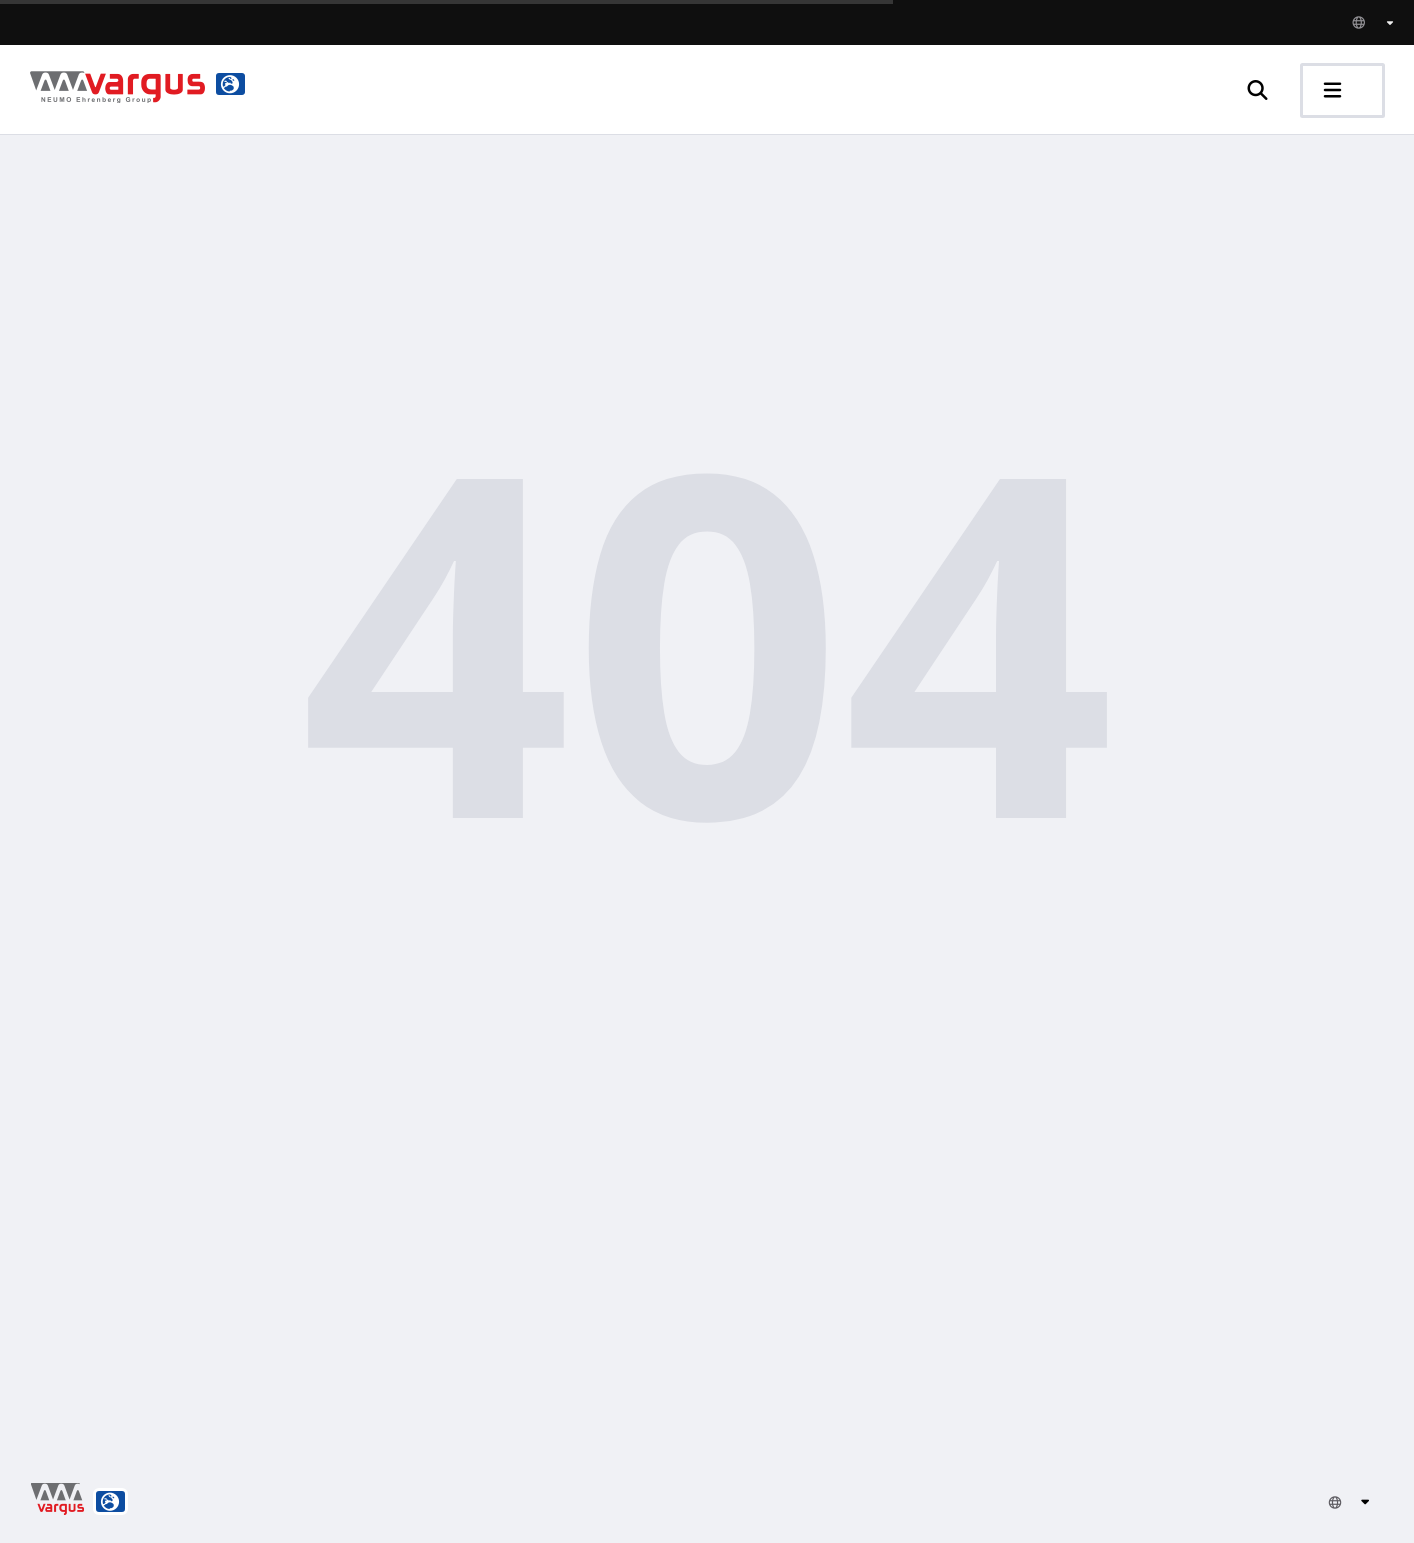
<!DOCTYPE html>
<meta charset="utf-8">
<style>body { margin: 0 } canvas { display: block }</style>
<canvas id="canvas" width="1414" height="1543"></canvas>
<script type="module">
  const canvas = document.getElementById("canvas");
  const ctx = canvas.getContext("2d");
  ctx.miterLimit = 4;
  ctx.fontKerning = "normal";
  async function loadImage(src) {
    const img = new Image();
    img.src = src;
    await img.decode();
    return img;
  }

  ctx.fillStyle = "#f0f1f5";
  ctx.fillRect(0, 0, 1414, 1543);
  ctx.fillStyle = "#0f0f0f";
  ctx.fillRect(0, 0, 1414, 45);
  ctx.fillStyle = "#363636";
  ctx.fillRect(0, 0, 893, 4);
  ctx.drawImage(await loadImage("img1.png"), 1352, 16, 13, 13);
  ctx.drawImage(await loadImage("img2.png"), 1386, 21, 8, 4);
  ctx.fillStyle = "#ffffff";
  ctx.fillRect(0, 45, 1414, 89);
  ctx.fillStyle = "#dcdee5";
  ctx.fillRect(0, 134, 1414, 1);
  ctx.drawImage(await loadImage("img3.png"), 30, 71, 175, 32);
  ctx.drawImage(await loadImage("img4.png"), 216, 73, 29, 22);
  ctx.beginPath();
  ctx.roundRect(214.5, 71.5, 32, 25, 4.5);
  ctx.strokeStyle = "#ffffff";
  ctx.lineWidth = 3;
  ctx.stroke();
  ctx.drawImage(await loadImage("img5.png"), 1247, 80, 21, 20);
  ctx.beginPath();
  ctx.roundRect(1301.5, 64.5, 82, 52, 1);
  ctx.strokeStyle = "#dcdee5";
  ctx.stroke();
  ctx.drawImage(await loadImage("img6.png"), 1323, 82, 19, 16);
  ctx.font = "bold 475px Open Sans";
  ctx.fillText("404", 300, 818);
  ctx.drawImage(await loadImage("img7.png"), 31, 1483, 53, 32);
  ctx.drawImage(await loadImage("img8.png"), 96, 1491, 29, 21);
  ctx.beginPath();
  ctx.roundRect(94.5, 1489.5, 32, 24, 4.5);
  ctx.strokeStyle = "#ffffff";
  ctx.stroke();
  ctx.drawImage(await loadImage("img9.png"), 1328, 1496, 14, 13);
  ctx.drawImage(await loadImage("img10.png"), 1361, 1499, 8, 6);
</script>
